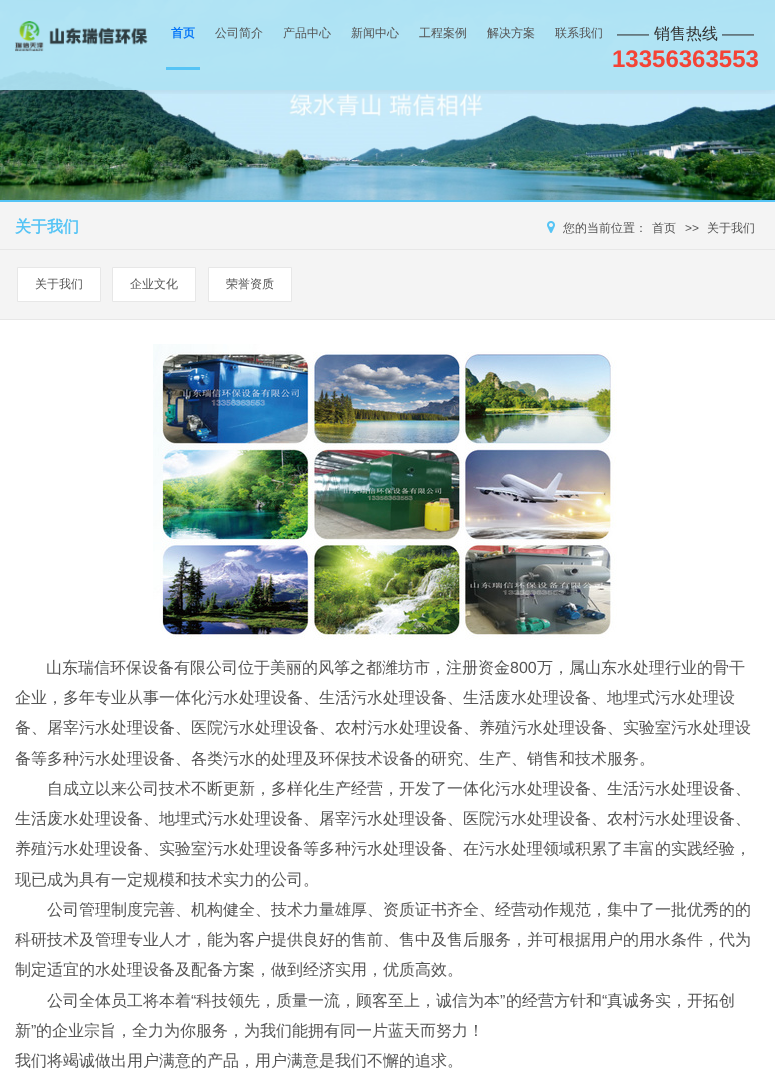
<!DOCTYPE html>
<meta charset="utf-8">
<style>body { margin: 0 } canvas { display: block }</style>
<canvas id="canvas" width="775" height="1069"></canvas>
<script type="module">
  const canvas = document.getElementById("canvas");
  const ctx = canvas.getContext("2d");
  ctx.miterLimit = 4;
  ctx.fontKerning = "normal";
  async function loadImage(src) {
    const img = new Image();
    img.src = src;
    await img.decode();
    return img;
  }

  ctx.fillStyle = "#ffffff";
  ctx.fillRect(0, 0, 775, 1069);
  ctx.drawImage(await loadImage("img1.png"), 0, 0, 775, 200);
  ctx.save();
  ctx.beginPath();
  ctx.rect(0, 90, 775, 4);
  ctx.clip();
  ctx.fillStyle = "rgba(0, 0, 0, 0.1)";
  ctx.filter = "blur(5px)";
  ctx.beginPath();
  ctx.rect(0, 0, 775, 90);
  ctx.fill();
  ctx.filter = "none";
  ctx.restore();
  ctx.fillStyle = "rgba(174, 227, 243, 0.95)";
  ctx.fillRect(0, 0, 775, 90);
  ctx.drawImage(await loadImage("img2.png"), 15, 21, 133, 31);
  ctx.fillStyle = "#56c4f5";
  ctx.fillRect(166, 67, 34, 3);
  ctx.font = "bold 12px WenQuanYi Zen Hei";
  ctx.fillStyle = "#0777f8";
  ctx.fillText("首页", 171, 37);
  ctx.font = "500 12px WenQuanYi Zen Hei";
  ctx.fillStyle = "#555555";
  ctx.fillText("公司简介", 215, 37);
  ctx.fillText("产品中心", 283, 37);
  ctx.fillText("新闻中心", 351, 37);
  ctx.fillText("工程案例", 419, 37);
  ctx.fillText("解决方案", 487, 37);
  ctx.fillText("联系我们", 555, 37);
  ctx.font = "16px Liberation Sans";
  ctx.fillStyle = "#333333";
  ctx.fillText("——", 617, 39);
  ctx.font = "500 16px WenQuanYi Zen Hei";
  ctx.fillText("销售热线", 654, 39);
  ctx.font = "16px Liberation Sans";
  ctx.fillText("——", 722, 39);
  ctx.font = "bold 24px Liberation Sans";
  ctx.fillStyle = "#f44336";
  ctx.fillText("13356363553", 612, 67);
  ctx.fillStyle = "#f4f4f4";
  ctx.fillRect(0, 202, 775, 47);
  ctx.fillStyle = "#56c4f5";
  ctx.fillRect(0, 200, 775, 2);
  ctx.fillStyle = "#e7e7e7";
  ctx.fillRect(0, 249, 775, 1);
  ctx.font = "bold 16px WenQuanYi Zen Hei";
  ctx.fillStyle = "#56c4f5";
  ctx.fillText("关于我们", 15, 232);
  ctx.drawImage(await loadImage("img3.png"), 547, 221, 8, 12);
  ctx.font = "500 12px WenQuanYi Zen Hei";
  ctx.fillStyle = "#555555";
  ctx.fillText("您的当前位置：", 563, 232);
  ctx.fillText("首页", 652, 232);
  ctx.font = "12px Liberation Sans";
  ctx.fillText(">>", 685, 232);
  ctx.font = "500 12px WenQuanYi Zen Hei";
  ctx.fillText("关于我们", 707, 232);
  ctx.fillStyle = "#f4f4f4";
  ctx.fillRect(0, 250, 775, 69);
  ctx.fillStyle = "#e7e7e7";
  ctx.fillRect(0, 319, 775, 1);
  ctx.fillStyle = "#ffffff";
  ctx.beginPath();
  ctx.rect(17.5, 267.5, 83, 34);
  ctx.fill();
  ctx.strokeStyle = "#e7e7e7";
  ctx.stroke();
  ctx.fillStyle = "#555555";
  ctx.fillText("关于我们", 35, 288);
  ctx.fillStyle = "#ffffff";
  ctx.beginPath();
  ctx.rect(112.5, 267.5, 83, 34);
  ctx.fill();
  ctx.stroke();
  ctx.fillStyle = "#555555";
  ctx.fillText("企业文化", 130, 288);
  ctx.fillStyle = "#ffffff";
  ctx.beginPath();
  ctx.rect(208.5, 267.5, 83, 34);
  ctx.fill();
  ctx.stroke();
  ctx.fillStyle = "#555555";
  ctx.fillText("荣誉资质", 226, 288);
  ctx.drawImage(await loadImage("img4.png"), 153, 344, 464, 296);
  ctx.font = "500 16px WenQuanYi Zen Hei";
  ctx.fillText("山东瑞信环保设备有限公司位于美丽的风筝之都潍坊市，注册资金", 46, 673);
  ctx.font = "16px Liberation Sans";
  ctx.fillText("800", 510, 673);
  ctx.font = "500 16px WenQuanYi Zen Hei";
  ctx.fillText("万，属山东水处理行业的骨干", 537, 673);
  ctx.fillText("企业，多年专业从事一体化污水处理设备、生活污水处理设备、生活废水处理设备、地埋式污水处理设", 15, 703);
  ctx.fillText("备、屠宰污水处理设备、医院污水处理设备、农村污水处理设备、养殖污水处理设备、实验室污水处理设", 15, 733);
  ctx.fillText("备等多种污水处理设备、各类污水的处理及环保技术设备的研究、生产、销售和技术服务。", 15, 764);
  ctx.fillText("自成立以来公司技术不断更新，多样化生产经营，开发了一体化污水处理设备、生活污水处理设备、", 47, 794);
  ctx.fillText("生活废水处理设备、地埋式污水处理设备、屠宰污水处理设备、医院污水处理设备、农村污水处理设备、", 15, 824);
  ctx.fillText("养殖污水处理设备、实验室污水处理设备等多种污水处理设备、在污水处理领域积累了丰富的实践经验，", 15, 854);
  ctx.fillText("现已成为具有一定规模和技术实力的公司。", 15, 885);
  ctx.fillText("公司管理制度完善、机构健全、技术力量雄厚、资质证书齐全、经营动作规范，集中了一批优秀的的", 47, 915);
  ctx.fillText("科研技术及管理专业人才，能为客户提供良好的售前、售中及售后服务，并可根据用户的用水条件，代为", 15, 945);
  ctx.fillText("制定适宜的水处理设备及配备方案，做到经济实用，优质高效。", 15, 975);
  ctx.fillText("公司全体员工将本着", 47, 1006);
  ctx.font = "16px Liberation Sans";
  ctx.fillText("“", 191, 1006);
  ctx.font = "500 16px WenQuanYi Zen Hei";
  ctx.fillText("科技领先，质量一流，顾客至上，诚信为本", 196, 1006);
  ctx.font = "16px Liberation Sans";
  ctx.fillText("”", 500, 1006);
  ctx.font = "500 16px WenQuanYi Zen Hei";
  ctx.fillText("的经营方针和", 506, 1006);
  ctx.font = "16px Liberation Sans";
  ctx.fillText("“", 602, 1006);
  ctx.font = "500 16px WenQuanYi Zen Hei";
  ctx.fillText("真诚务实，开拓创", 607, 1006);
  ctx.fillText("新", 15, 1036);
  ctx.font = "16px Liberation Sans";
  ctx.fillText("”", 31, 1036);
  ctx.font = "500 16px WenQuanYi Zen Hei";
  ctx.fillText("的企业宗旨，全力为你服务，为我们能拥有同一片蓝天而努力！", 36, 1036);
  ctx.fillText("我们将竭诚做出用户满意的产品，用户满意是我们不懈的追求。", 15, 1066);
</script>
